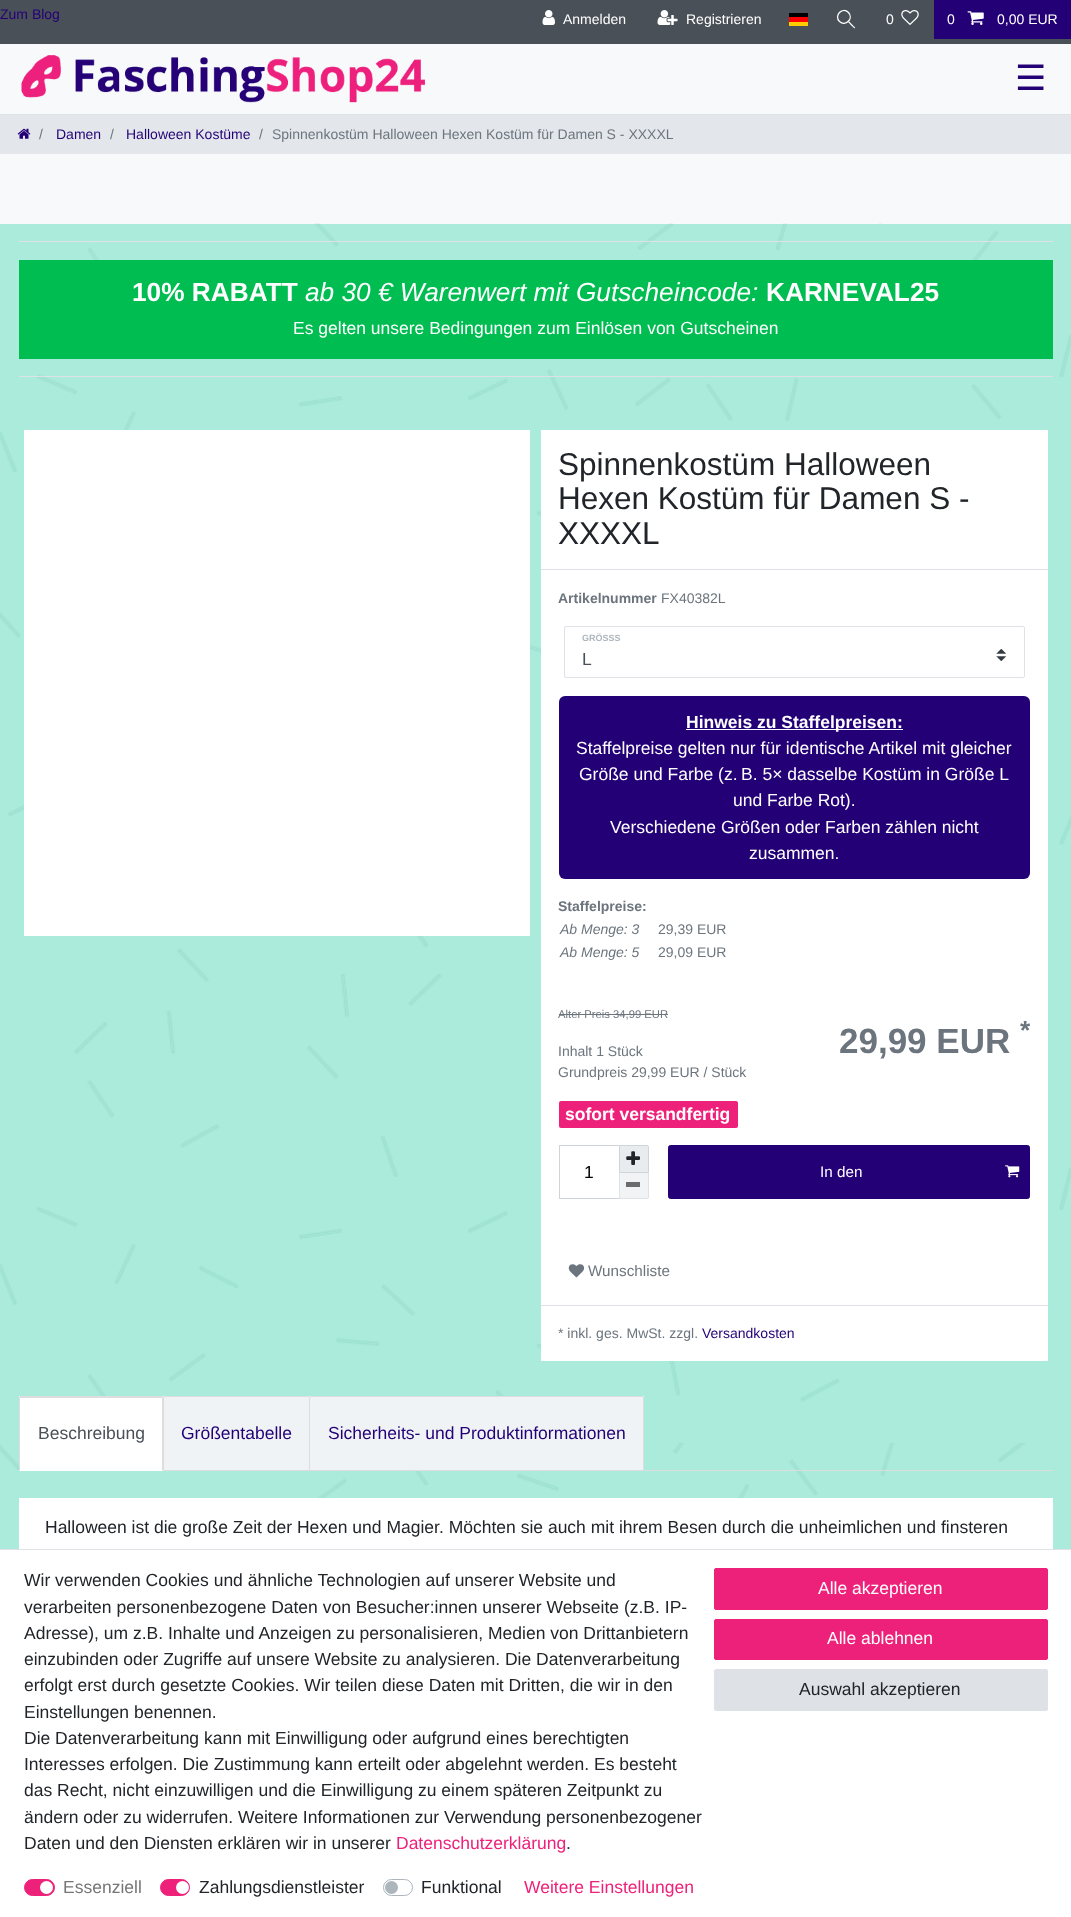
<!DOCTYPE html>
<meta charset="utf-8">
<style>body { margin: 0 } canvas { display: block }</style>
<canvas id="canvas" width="1071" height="1917"></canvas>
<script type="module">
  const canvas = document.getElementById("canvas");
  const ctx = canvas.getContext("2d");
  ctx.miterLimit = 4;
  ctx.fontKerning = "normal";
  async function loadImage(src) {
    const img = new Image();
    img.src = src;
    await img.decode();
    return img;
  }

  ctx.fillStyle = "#f8f9fa";
  ctx.fillRect(0, 0, 1071, 1917);
  ctx.fillStyle = "#495057";
  ctx.fillRect(0, 0, 1071, 44);
  ctx.font = "14px Liberation Sans";
  ctx.fillStyle = "#240077";
  ctx.fillText("Zum Blog", 0, 19);
  ctx.drawImage(await loadImage("img1.png"), 542, 10, 13, 15);
  ctx.fillStyle = "#ffffff";
  ctx.fillText("Anmelden", 563, 24);
  ctx.drawImage(await loadImage("img2.png"), 657, 10, 21, 15);
  ctx.fillText("Registrieren", 686, 24);
  ctx.fillStyle = "#ffcc00";
  ctx.fillRect(789, 22, 19, 4);
  ctx.fillStyle = "#000000";
  ctx.fillRect(789, 13, 19, 4);
  ctx.fillStyle = "#ff0000";
  ctx.fillRect(789, 17, 19, 5);
  ctx.fillStyle = "#ffffff";
  ctx.beginPath();
  ctx.moveTo(854, 28);
  ctx.bezierCurveTo(852.5, 26.5, 841.5, 15.5, 841.5, 15);
  ctx.lineTo(842.5, 14.5);
  ctx.lineTo(855, 27.5);
  ctx.bezierCurveTo(855.5, 28, 854.5, 28.5, 854, 28);
  ctx.closePath();
  ctx.fill();
  ctx.fillStyle = "#495057";
  ctx.beginPath();
  ctx.moveTo(839, 22);
  ctx.bezierCurveTo(832.5, 15.5, 842.5, 5.5, 849, 12);
  ctx.bezierCurveTo(855, 18.5, 845.5, 28, 839, 22);
  ctx.closePath();
  ctx.fill();
  ctx.beginPath();
  ctx.moveTo(839.5, 21.5);
  ctx.bezierCurveTo(833.5, 15.5, 842.5, 6.5, 848.5, 12.5);
  ctx.bezierCurveTo(854, 18.5, 845.5, 27, 839.5, 21.5);
  ctx.closePath();
  ctx.strokeStyle = "#ffffff";
  ctx.lineWidth = 1.3;
  ctx.stroke();
  ctx.fillStyle = "#ffffff";
  ctx.fillText("0", 886, 24);
  ctx.drawImage(await loadImage("img3.png"), 901, 10, 18, 15);
  ctx.fillStyle = "#240077";
  ctx.fillRect(934, 0, 137, 39);
  ctx.fillStyle = "#ffffff";
  ctx.fillText("0", 947, 24);
  ctx.drawImage(await loadImage("img4.png"), 967, 11, 17, 14);
  ctx.fillText("0,00 EUR", 997, 24);
  ctx.fillStyle = "#dee2e6";
  ctx.fillRect(0, 114, 1071, 1);
  ctx.drawImage(await loadImage("img5.png"), 21, 55, 404, 48);
  ctx.font = "35px DejaVu Sans";
  ctx.fillStyle = "#240077";
  ctx.fillText("☰", 1015, 90);
  ctx.fillStyle = "#e3e7eb";
  ctx.fillRect(0, 115, 1071, 39);
  ctx.drawImage(await loadImage("img6.png"), 17, 128, 14, 11);
  ctx.font = "14px Liberation Sans";
  ctx.fillStyle = "#6c757d";
  ctx.fillText("/", 39, 139);
  ctx.fillStyle = "#240077";
  ctx.fillText("Damen", 56, 139);
  ctx.fillStyle = "#6c757d";
  ctx.fillText("/", 110, 139);
  ctx.fillStyle = "#240077";
  ctx.fillText("Halloween Kostüme", 126, 139);
  ctx.fillStyle = "#6c757d";
  ctx.fillText("/", 259, 139);
  ctx.fillText("Spinnenkostüm Halloween Hexen Kostüm für Damen S - XXXXL", 272, 139);
  ctx.fillStyle = "#aaebdc";
  ctx.fillRect(0, 224, 1071, 1325);
  ctx.drawImage(await loadImage("img7.png"), 0, 223, 1071, 1275);
  ctx.fillStyle = "#dee2e6";
  ctx.fillRect(19, 241, 1034, 1);
  ctx.fillStyle = "#00bd52";
  ctx.fillRect(19, 260, 1034, 99);
  ctx.font = "bold 26.25px Liberation Sans";
  ctx.fillStyle = "#ffffff";
  ctx.fillText("10% RABATT", 132, 301);
  ctx.font = "italic 26.25px Liberation Sans";
  ctx.fillText("ab 30 € Warenwert mit Gutscheincode:", 305, 301);
  ctx.font = "bold 26.25px Liberation Sans";
  ctx.fillText("KARNEVAL25", 766, 301);
  ctx.font = "17.5px Liberation Sans";
  ctx.fillText("Es gelten unsere Bedingungen zum Einlösen von Gutscheinen", 293, 334);
  ctx.fillStyle = "#dee2e6";
  ctx.fillRect(19, 376, 1034, 1);
  ctx.fillStyle = "#ffffff";
  ctx.fillRect(24, 430, 506, 506);
  ctx.fillRect(541, 430, 507, 931);
  ctx.font = "31.5px Liberation Sans";
  ctx.fillStyle = "#212529";
  ctx.fillText("Spinnenkostüm Halloween", 558, 475);
  ctx.fillText("Hexen Kostüm für Damen S -", 558, 509);
  ctx.fillText("XXXXL", 558, 544);
  ctx.fillStyle = "#dee2e6";
  ctx.fillRect(541, 569, 507, 1);
  ctx.font = "bold 14px Liberation Sans";
  ctx.fillStyle = "#6c757d";
  ctx.fillText("Artikelnummer", 558, 603);
  ctx.font = "14px Liberation Sans";
  ctx.fillText("FX40382L", 661, 603);
  ctx.beginPath();
  ctx.roundRect(564.5, 626.5, 460, 51, 1.5);
  ctx.strokeStyle = "#dee2e6";
  ctx.lineWidth = 1;
  ctx.stroke();
  ctx.font = "bold 9px Liberation Sans";
  ctx.fillStyle = "#adb5bd";
  ctx.fillText("GRÖSSS", 582, 641);
  ctx.drawImage(await loadImage("img8.png"), 996, 649, 10, 12);
  ctx.font = "17.5px Liberation Sans";
  ctx.fillStyle = "#495057";
  ctx.fillText("L", 582, 665);
  ctx.fillStyle = "#240077";
  ctx.beginPath();
  ctx.roundRect(559, 696, 471, 183, 6);
  ctx.fill();
  ctx.fillStyle = "#ffffff";
  ctx.fillRect(686, 729, 217, 1);
  ctx.font = "bold 17.5px Liberation Sans";
  ctx.fillText("Hinweis zu Staffelpreisen:", 686, 728);
  ctx.font = "17.5px Liberation Sans";
  ctx.fillText("Staffelpreise gelten nur für identische Artikel mit gleicher", 576, 754);
  ctx.fillText("Größe und Farbe (z. B. 5× dasselbe Kostüm in Größe L", 579, 780);
  ctx.fillText("und Farbe Rot).", 733, 806);
  ctx.fillText("Verschiedene Größen oder Farben zählen nicht", 610, 833);
  ctx.fillText("zusammen.", 749, 859);
  ctx.font = "bold 14px Liberation Sans";
  ctx.fillStyle = "#6c757d";
  ctx.fillText("Staffelpreise:", 558, 911);
  ctx.font = "italic 14px Liberation Sans";
  ctx.fillText("Ab Menge: 3", 560, 934);
  ctx.font = "14px Liberation Sans";
  ctx.fillText("29,39 EUR", 658, 934);
  ctx.font = "italic 14px Liberation Sans";
  ctx.fillText("Ab Menge: 5", 560, 957);
  ctx.font = "14px Liberation Sans";
  ctx.fillText("29,09 EUR", 658, 957);
  ctx.font = "11.25px Liberation Sans";
  ctx.fillText("Alter Preis 34,99 EUR", 558, 1018);
  ctx.fillRect(559, 1014, 109, 1);
  ctx.font = "bold 26.25px Liberation Sans";
  ctx.fillText("*", 1020, 1039);
  ctx.font = "bold 35px Liberation Sans";
  ctx.fillText("29,99 EUR", 839, 1053);
  ctx.font = "14px Liberation Sans";
  ctx.fillText("Inhalt 1 Stück", 558, 1056);
  ctx.fillText("Grundpreis 29,99 EUR / Stück", 558, 1077);
  ctx.fillStyle = "#ee217a";
  ctx.beginPath();
  ctx.roundRect(559, 1101, 179, 27, 2);
  ctx.fill();
  ctx.font = "bold 17.5px Liberation Sans";
  ctx.fillStyle = "#ffffff";
  ctx.fillText("sofort versandfertig", 565, 1120);
  ctx.fillStyle = "#ced4da";
  ctx.fillRect(559, 1145, 60, 1);
  ctx.fillRect(559, 1198, 60, 1);
  ctx.fillRect(559, 1145, 1, 54);
  ctx.font = "17.5px Liberation Sans";
  ctx.fillStyle = "#000000";
  ctx.fillText("1", 584, 1178);
  ctx.fillStyle = "#e9ecef";
  ctx.beginPath();
  ctx.roundRect(619.5, 1145.5, 29, 27, [0, 1.5, 0, 0]);
  ctx.fill();
  ctx.strokeStyle = "#ced4da";
  ctx.stroke();
  ctx.drawImage(await loadImage("img9.png"), 626, 1151, 14, 14);
  ctx.fillStyle = "#f1f3f5";
  ctx.beginPath();
  ctx.roundRect(619, 1173, 30, 26, [0, 0, 2, 0]);
  ctx.fill();
  ctx.fillStyle = "#dfe3e7";
  ctx.fillRect(648, 1173, 1, 25);
  ctx.fillRect(619, 1198, 29, 1);
  ctx.fillRect(619, 1173, 1, 26);
  ctx.fillStyle = "#6a6d70";
  ctx.fillRect(626, 1182, 14, 5);
  ctx.fillStyle = "#240077";
  ctx.beginPath();
  ctx.roundRect(668.5, 1145.5, 361, 53, 2);
  ctx.fill();
  ctx.strokeStyle = "#240077";
  ctx.stroke();
  ctx.font = "15.25px Liberation Sans";
  ctx.fillStyle = "#ffffff";
  ctx.fillText("In den", 820, 1177);
  ctx.drawImage(await loadImage("img10.png"), 1005, 1165, 15, 13);
  ctx.drawImage(await loadImage("img11.png"), 568, 1264, 17, 14);
  ctx.fillStyle = "#6c757d";
  ctx.fillText("Wunschliste", 588, 1276);
  ctx.fillStyle = "#dee2e6";
  ctx.fillRect(541, 1305, 507, 1);
  ctx.font = "14px Liberation Sans";
  ctx.fillStyle = "#6c757d";
  ctx.fillText("* inkl. ges. MwSt. zzgl.", 558, 1338);
  ctx.fillStyle = "#240077";
  ctx.fillText("Versandkosten", 702, 1338);
  ctx.fillStyle = "#dddddd";
  ctx.fillRect(644, 1470, 409, 1);
  ctx.fillStyle = "#f0f3f5";
  ctx.fillRect(19, 1396, 1, 2);
  ctx.fillStyle = "#ffffff";
  ctx.beginPath();
  ctx.roundRect(19, 1396, 145, 75, [2, 2, 0, 0]);
  ctx.fill();
  ctx.fillStyle = "#dddddd";
  ctx.beginPath();
  ctx.moveTo(19, 1397);
  ctx.lineTo(20, 1396);
  ctx.lineTo(163, 1396);
  ctx.lineTo(163, 1397);
  ctx.lineTo(162, 1398);
  ctx.lineTo(20, 1398);
  ctx.closePath();
  ctx.fill();
  ctx.beginPath();
  ctx.moveTo(164, 1471);
  ctx.lineTo(162, 1470);
  ctx.lineTo(162, 1398);
  ctx.lineTo(163, 1397);
  ctx.lineTo(164, 1397);
  ctx.closePath();
  ctx.fill();
  ctx.beginPath();
  ctx.moveTo(20, 1398);
  ctx.lineTo(19, 1397);
  ctx.lineTo(19, 1471);
  ctx.lineTo(20, 1470);
  ctx.closePath();
  ctx.fill();
  ctx.font = "17.5px Liberation Sans";
  ctx.fillStyle = "#495057";
  ctx.fillText("Beschreibung", 38, 1439);
  ctx.fillStyle = "#f0f3f5";
  ctx.fillRect(163, 1396, 146, 74);
  ctx.beginPath();
  ctx.roundRect(163.5, 1396.5, 146, 74, [1.5, 1.5, 0, 0]);
  ctx.strokeStyle = "#dddddd";
  ctx.stroke();
  ctx.fillStyle = "#240077";
  ctx.fillText("Größentabelle", 181, 1439);
  ctx.fillStyle = "#f0f3f5";
  ctx.fillRect(309, 1396, 335, 74);
  ctx.beginPath();
  ctx.roundRect(309.5, 1396.5, 334, 74, [1.5, 1.5, 0, 0]);
  ctx.stroke();
  ctx.fillStyle = "#240077";
  ctx.fillText("Sicherheits- und Produktinformationen", 328, 1439);
  ctx.fillStyle = "#ffffff";
  ctx.fillRect(19, 1498, 1034, 51);
  ctx.fillStyle = "#212529";
  ctx.fillText("Halloween ist die große Zeit der Hexen und Magier. Möchten sie auch mit ihrem Besen durch die unheimlichen und finsteren", 45, 1533);
  ctx.fillStyle = "#ffffff";
  ctx.fillRect(0, 1550, 1071, 367);
  ctx.fillStyle = "#dee2e6";
  ctx.fillRect(0, 1549, 1071, 1);
  ctx.fillStyle = "#212529";
  ctx.fillText("Wir verwenden Cookies und ähnliche Technologien auf unserer Website und", 24, 1586);
  ctx.fillText("verarbeiten personenbezogene Daten von Besucher:innen unserer Webseite (z.B. IP-", 24, 1613);
  ctx.fillText("Adresse), um z.B. Inhalte und Anzeigen zu personalisieren, Medien von Drittanbietern", 24, 1639);
  ctx.fillText("einzubinden oder Zugriffe auf unsere Website zu analysieren. Die Datenverarbeitung", 24, 1665);
  ctx.fillText("erfolgt erst durch gesetzte Cookies. Wir teilen diese Daten mit Dritten, die wir in den", 24, 1691);
  ctx.fillText("Einstellungen benennen.", 24, 1718);
  ctx.fillText("Die Datenverarbeitung kann mit Einwilligung oder aufgrund eines berechtigten", 24, 1744);
  ctx.fillText("Interesses erfolgen. Die Zustimmung kann erteilt oder abgelehnt werden. Es besteht", 24, 1770);
  ctx.fillText("das Recht, nicht einzuwilligen und die Einwilligung zu einem späteren Zeitpunkt zu", 24, 1796);
  ctx.fillText("ändern oder zu widerrufen. Weitere Informationen zur Verwendung personenbezogener", 24, 1823);
  ctx.fillText("Daten und den Diensten erklären wir in unserer", 24, 1849);
  ctx.fillStyle = "#ee217a";
  ctx.fillText("Datenschutzerklärung", 396, 1849);
  ctx.fillStyle = "#212529";
  ctx.fillText(".", 566, 1849);
  ctx.fillStyle = "#ee217a";
  ctx.beginPath();
  ctx.roundRect(24.5, 1879.5, 30, 16, 8);
  ctx.fill();
  ctx.strokeStyle = "#ee217a";
  ctx.stroke();
  ctx.fillStyle = "#767676";
  ctx.fillText("Essenziell", 63, 1893);
  ctx.fillStyle = "#ffffff";
  ctx.beginPath();
  ctx.arc(46.5, 1887.5, 6.5, 0, Math.PI * 2);
  ctx.fill();
  ctx.fillStyle = "#ee217a";
  ctx.beginPath();
  ctx.roundRect(160.5, 1879.5, 29, 16, 8);
  ctx.fill();
  ctx.stroke();
  ctx.fillStyle = "#212529";
  ctx.fillText("Zahlungsdienstleister", 199, 1893);
  ctx.fillStyle = "#ffffff";
  ctx.beginPath();
  ctx.arc(182.5, 1887.5, 6.5, 0, Math.PI * 2);
  ctx.fill();
  ctx.beginPath();
  ctx.roundRect(383.5, 1879.5, 29, 16, 8);
  ctx.strokeStyle = "#adb5bd";
  ctx.stroke();
  ctx.fillStyle = "#212529";
  ctx.fillText("Funktional", 421, 1893);
  ctx.fillStyle = "#adb5bd";
  ctx.beginPath();
  ctx.arc(391.5, 1887.5, 6.5, 0, Math.PI * 2);
  ctx.fill();
  ctx.fillStyle = "#ee217a";
  ctx.fillText("Weitere Einstellungen", 524, 1893);
  ctx.beginPath();
  ctx.roundRect(714.5, 1568.5, 333, 41, 1.5);
  ctx.fill();
  ctx.strokeStyle = "#ee217a";
  ctx.stroke();
  ctx.fillStyle = "#ffffff";
  ctx.fillText("Alle akzeptieren", 818, 1594);
  ctx.fillStyle = "#ee217a";
  ctx.beginPath();
  ctx.roundRect(714.5, 1619.5, 333, 40, 1.5);
  ctx.fill();
  ctx.stroke();
  ctx.fillStyle = "#ffffff";
  ctx.fillText("Alle ablehnen", 827, 1644);
  ctx.fillStyle = "#dee2e6";
  ctx.beginPath();
  ctx.roundRect(714.5, 1669.5, 333, 41, 1.5);
  ctx.fill();
  ctx.strokeStyle = "#dee2e6";
  ctx.stroke();
  ctx.fillStyle = "#212529";
  ctx.fillText("Auswahl akzeptieren", 799, 1695);
</script>
